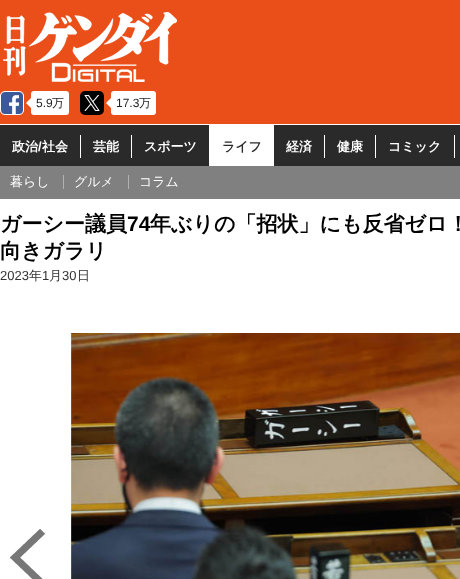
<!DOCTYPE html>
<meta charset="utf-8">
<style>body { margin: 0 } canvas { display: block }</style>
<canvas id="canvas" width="460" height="579"></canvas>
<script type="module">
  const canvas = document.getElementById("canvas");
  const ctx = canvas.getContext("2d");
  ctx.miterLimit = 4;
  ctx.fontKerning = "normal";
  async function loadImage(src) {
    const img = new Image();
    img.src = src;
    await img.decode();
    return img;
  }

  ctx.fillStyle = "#ffffff";
  ctx.fillRect(0, 0, 460, 579);
  ctx.fillStyle = "#ea4e19";
  ctx.fillRect(0, 0, 460, 124);
  ctx.drawImage(await loadImage("img1.png"), 3, 12, 174, 70);
  ctx.drawImage(await loadImage("img2.png"), 0, 91, 24, 24);
  ctx.fillStyle = "#ffffff";
  ctx.beginPath();
  ctx.roundRect(31, 91, 38, 24, 3);
  ctx.fill();
  ctx.beginPath();
  ctx.moveTo(31, 98);
  ctx.lineTo(31, 108);
  ctx.lineTo(26, 103);
  ctx.closePath();
  ctx.fill();
  ctx.font = "12px Liberation Sans";
  ctx.fillStyle = "#242424";
  ctx.fillText("5.9", 36, 107);
  ctx.font = "500 12px WenQuanYi Zen Hei";
  ctx.fillText("万", 52, 107);
  ctx.fillStyle = "#000000";
  ctx.beginPath();
  ctx.roundRect(80, 91, 24, 24, 5);
  ctx.fill();
  ctx.drawImage(await loadImage("img3.png"), 84, 95, 16, 16);
  ctx.fillStyle = "#ffffff";
  ctx.beginPath();
  ctx.roundRect(111, 91, 45, 24, 3);
  ctx.fill();
  ctx.beginPath();
  ctx.moveTo(111, 98);
  ctx.lineTo(111, 108);
  ctx.lineTo(106, 103);
  ctx.closePath();
  ctx.fill();
  ctx.font = "12px Liberation Sans";
  ctx.fillStyle = "#242424";
  ctx.fillText("17.3", 116, 107);
  ctx.font = "500 12px WenQuanYi Zen Hei";
  ctx.fillText("万", 139, 107);
  ctx.fillStyle = "#2a2a2a";
  ctx.fillRect(0, 125, 460, 41);
  ctx.fillStyle = "#ffffff";
  ctx.fillRect(80, 135, 1, 23);
  ctx.font = "bold 13px WenQuanYi Zen Hei";
  ctx.fillText("政治", 12, 151);
  ctx.font = "bold 13px Liberation Sans";
  ctx.fillText("/", 38, 151);
  ctx.font = "bold 13px WenQuanYi Zen Hei";
  ctx.fillText("社会", 42, 151);
  ctx.fillRect(131, 135, 1, 23);
  ctx.fillText("芸能", 93, 151);
  ctx.fillText("スポーツ", 144, 151);
  ctx.fillRect(209, 125, 65, 41);
  ctx.fillStyle = "#2a2a2a";
  ctx.fillText("ライフ", 222, 151);
  ctx.fillStyle = "#ffffff";
  ctx.fillRect(324, 135, 1, 23);
  ctx.fillText("経済", 286, 151);
  ctx.fillRect(375, 135, 1, 23);
  ctx.fillText("健康", 337, 151);
  ctx.fillRect(454, 135, 1, 23);
  ctx.fillText("コミック", 388, 151);
  ctx.fillStyle = "#808080";
  ctx.fillRect(0, 166, 460, 33);
  ctx.font = "500 13px WenQuanYi Zen Hei";
  ctx.fillStyle = "#ffffff";
  ctx.fillText("暮らし", 10, 186);
  ctx.fillStyle = "#b1b1b1";
  ctx.fillRect(63, 175, 1, 14);
  ctx.fillStyle = "#ffffff";
  ctx.fillText("グルメ", 74, 186);
  ctx.fillStyle = "#b1b1b1";
  ctx.fillRect(128, 175, 1, 14);
  ctx.fillStyle = "#ffffff";
  ctx.fillText("コラム", 139, 186);
  ctx.font = "bold 21px WenQuanYi Zen Hei";
  ctx.fillStyle = "#000000";
  ctx.fillText("ガーシー議員", 0, 231);
  ctx.font = "bold 21px Liberation Sans";
  ctx.fillText("74", 127, 231);
  ctx.font = "bold 21px WenQuanYi Zen Hei";
  ctx.fillText("年ぶりの「招状」にも反省ゼロ！", 150, 231);
  ctx.fillText("向きガラリ", 0, 258);
  ctx.font = "13px Liberation Sans";
  ctx.fillStyle = "#333333";
  ctx.fillText("2023", 0, 280);
  ctx.font = "500 13px WenQuanYi Zen Hei";
  ctx.fillText("年", 29, 280);
  ctx.font = "13px Liberation Sans";
  ctx.fillText("1", 42, 280);
  ctx.font = "500 13px WenQuanYi Zen Hei";
  ctx.fillText("月", 49, 280);
  ctx.font = "13px Liberation Sans";
  ctx.fillText("30", 62, 280);
  ctx.font = "500 13px WenQuanYi Zen Hei";
  ctx.fillText("日", 77, 280);
  ctx.drawImage(await loadImage("img4.png"), 10, 529, 35, 50);
  ctx.drawImage(await loadImage("img5.png"), 71, 333, 389, 246);
</script>
